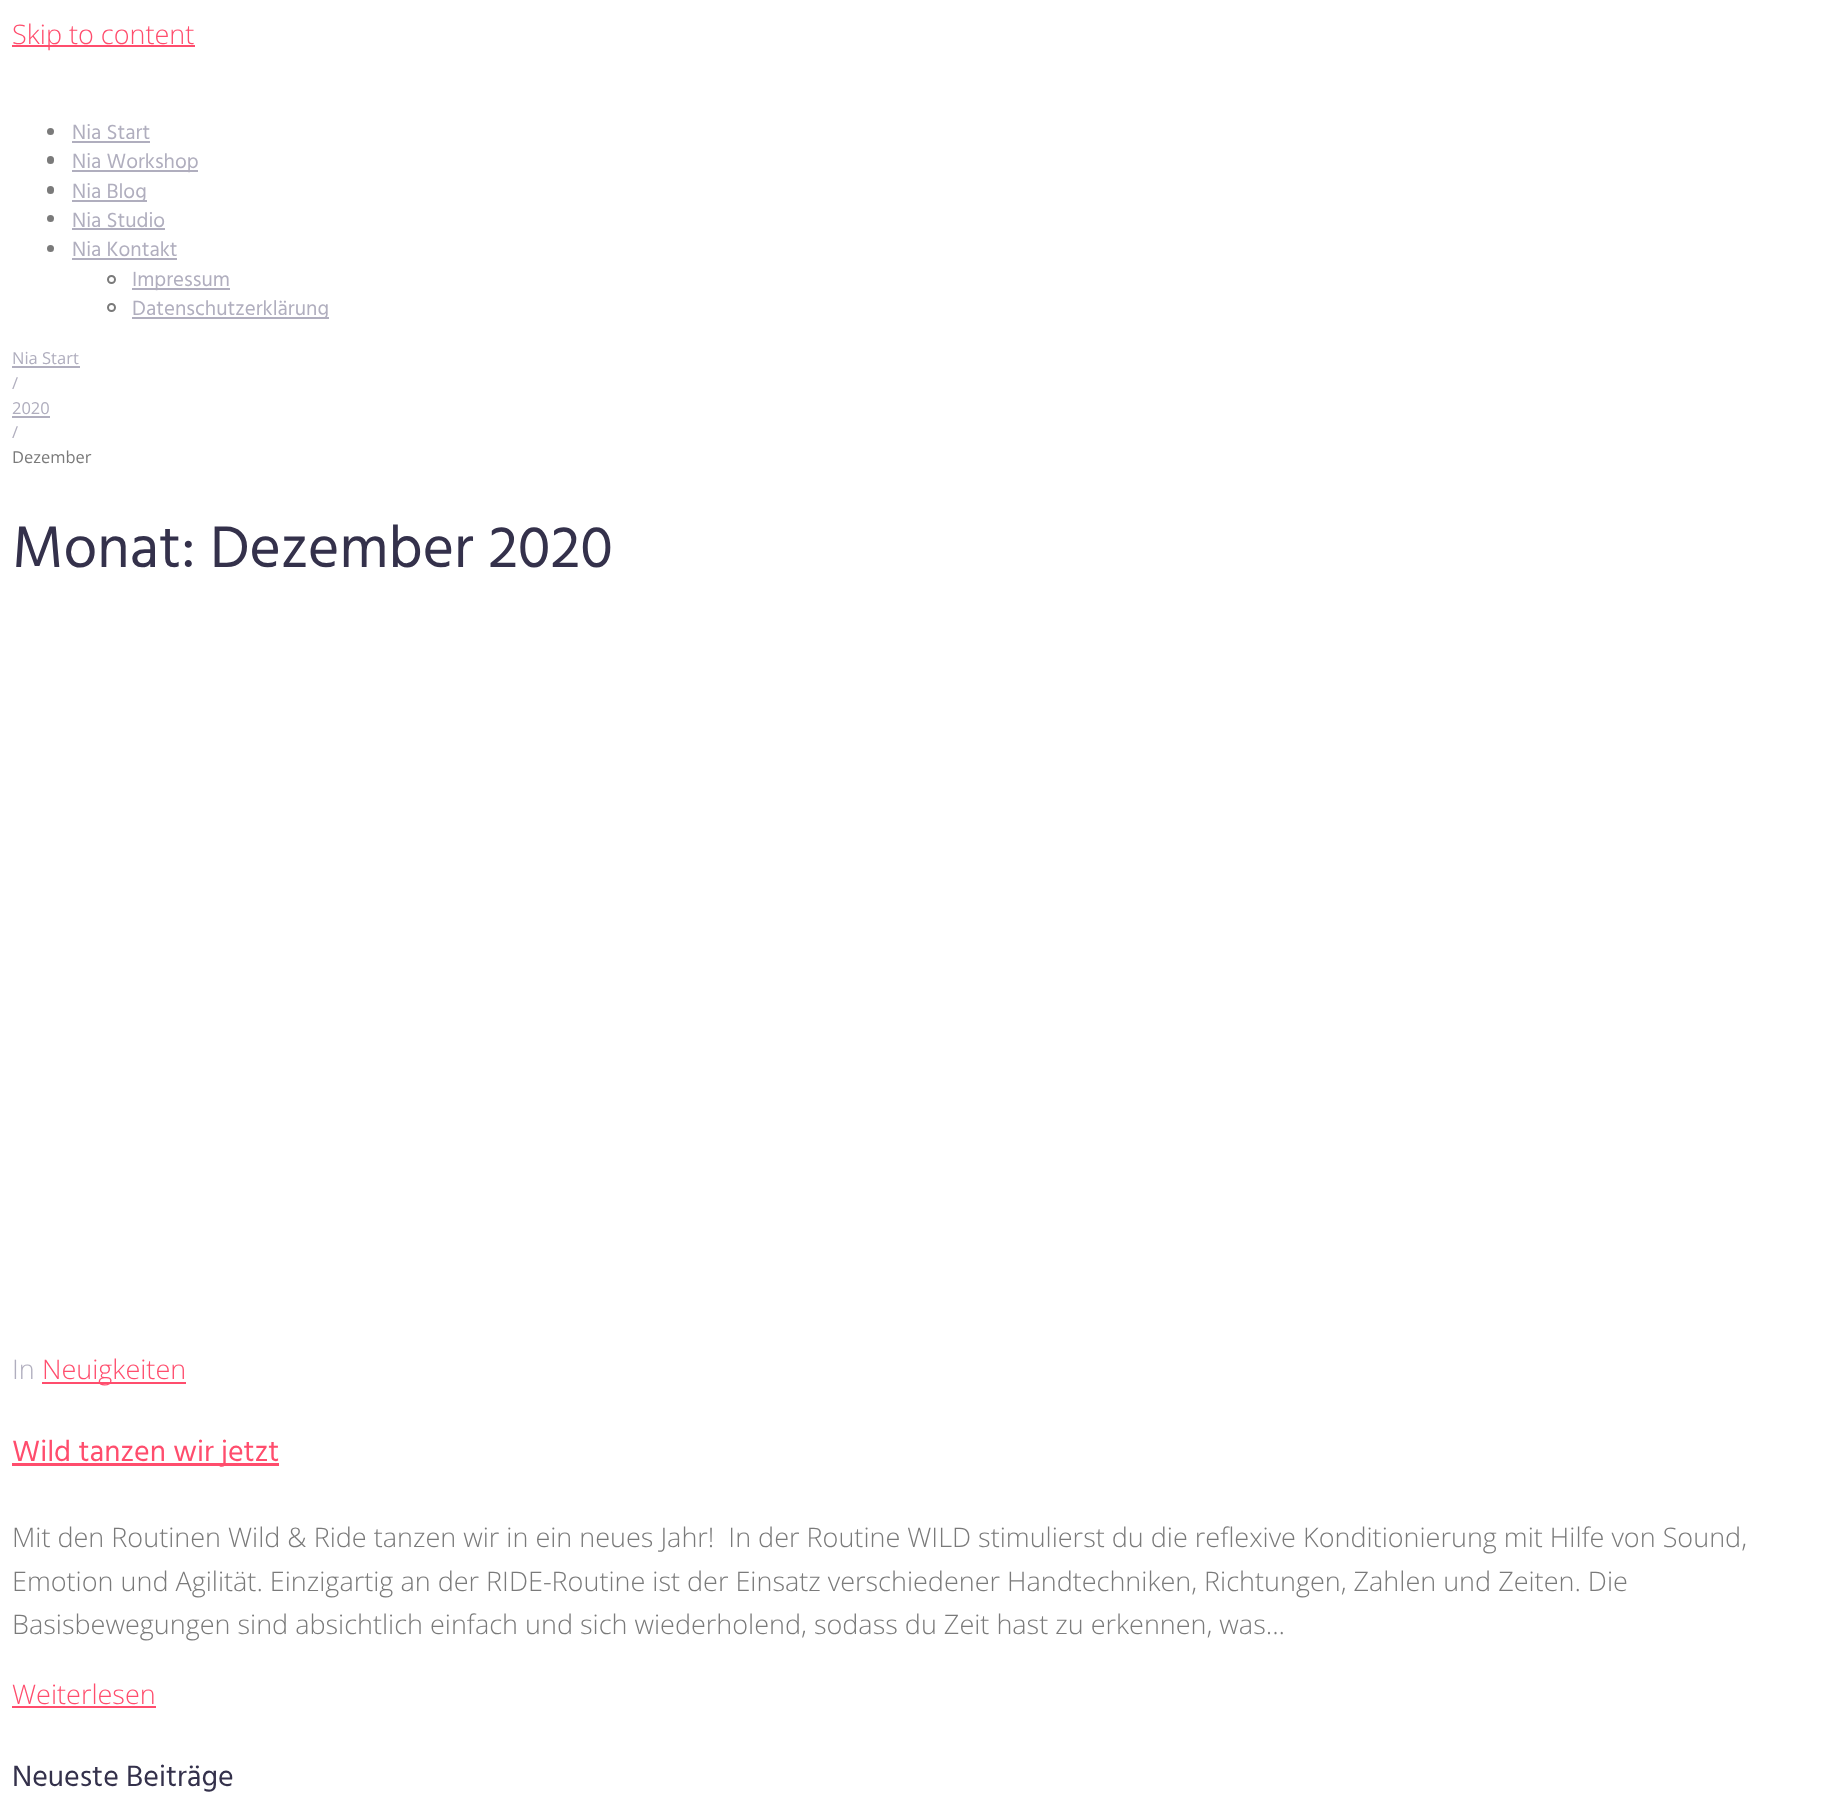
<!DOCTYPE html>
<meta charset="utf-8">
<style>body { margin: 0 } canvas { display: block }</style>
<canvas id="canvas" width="1839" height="1820"></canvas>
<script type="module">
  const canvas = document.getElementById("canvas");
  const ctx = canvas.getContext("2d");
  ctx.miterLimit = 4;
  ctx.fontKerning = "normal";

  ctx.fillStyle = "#ffffff";
  ctx.fillRect(0, 0, 1839, 1820);
  ctx.fillStyle = "#ff4d6d";
  ctx.fillRect(12, 45, 183, 2);
  ctx.font = "300 27px Open Sans";
  ctx.fillText("Skip to content", 12, 44);
  ctx.fillStyle = "#7a7a7a";
  ctx.beginPath();
  ctx.arc(50.5, 131.5, 3.5, 0, Math.PI * 2);
  ctx.fill();
  ctx.font = "21px Hind";
  ctx.fillStyle = "#b0aebe";
  ctx.fillText("Nia Start", 72, 139);
  ctx.fillRect(72, 141, 78, 2);
  ctx.fillStyle = "#7a7a7a";
  ctx.beginPath();
  ctx.roundRect(47, 156, 7, 8, 3.5);
  ctx.fill();
  ctx.fillStyle = "#b0aebe";
  ctx.fillRect(72, 170, 126, 2);
  ctx.fillText("Nia Workshop", 72, 168);
  ctx.fillStyle = "#7a7a7a";
  ctx.beginPath();
  ctx.roundRect(47, 186, 7, 8, 3.5);
  ctx.fill();
  ctx.fillStyle = "#b0aebe";
  ctx.fillRect(72, 200, 75, 2);
  ctx.fillText("Nia Blog", 72, 198);
  ctx.fillStyle = "#7a7a7a";
  ctx.beginPath();
  ctx.arc(50.5, 218.5, 3.5, 0, Math.PI * 2);
  ctx.fill();
  ctx.fillStyle = "#b0aebe";
  ctx.fillText("Nia Studio", 72, 227);
  ctx.fillRect(72, 228, 93, 2);
  ctx.fillStyle = "#7a7a7a";
  ctx.beginPath();
  ctx.arc(50.5, 248.5, 3.5, 0, Math.PI * 2);
  ctx.fill();
  ctx.fillStyle = "#b0aebe";
  ctx.fillText("Nia Kontakt", 72, 256);
  ctx.fillRect(72, 258, 105, 2);
  ctx.beginPath();
  ctx.arc(111.5, 279.5, 3.5, 0, Math.PI * 2);
  ctx.strokeStyle = "#7a7a7a";
  ctx.lineWidth = 2;
  ctx.stroke();
  ctx.fillRect(132, 288, 98, 2);
  ctx.fillText("Impressum", 132, 286);
  ctx.beginPath();
  ctx.arc(111.5, 307.5, 3.5, 0, Math.PI * 2);
  ctx.stroke();
  ctx.fillRect(132, 317, 197, 2);
  ctx.fillText("Datenschutzerklärung", 132, 315);
  ctx.font = "16.5px Open Sans";
  ctx.fillText("Nia Start", 12, 364);
  ctx.fillRect(12, 366, 68, 2);
  ctx.fillText("/", 12, 389);
  ctx.fillText("2020", 12, 414);
  ctx.fillRect(12, 416, 38, 2);
  ctx.fillText("/", 12, 438);
  ctx.fillStyle = "#7a7a7a";
  ctx.fillText("Dezember", 12, 463);
  ctx.font = "60px Hind";
  ctx.fillStyle = "#34314b";
  ctx.fillText("Monat: Dezember 2020", 12, 567);
  ctx.font = "300 27px Open Sans";
  ctx.fillStyle = "#b0aebe";
  ctx.fillText("In", 12, 1379);
  ctx.fillStyle = "#ff4d6d";
  ctx.fillRect(42, 1382, 144, 2);
  ctx.fillText("Neuigkeiten", 42, 1379);
  ctx.fillRect(12, 1463, 267, 3);
  ctx.font = "30px Hind";
  ctx.fillText("Wild tanzen wir jetzt", 12, 1461);
  ctx.font = "300 27px Open Sans";
  ctx.fillStyle = "#7a7a7a";
  ctx.fillText("Mit den Routinen Wild & Ride tanzen wir in ein neues Jahr!  In der Routine WILD stimulierst du die reflexive Konditionierung mit Hilfe von Sound,", 12, 1547);
  ctx.fillText("Emotion und Agilität. Einzigartig an der RIDE-Routine ist der Einsatz verschiedener Handtechniken, Richtungen, Zahlen und Zeiten. Die", 12, 1591);
  ctx.fillText("Basisbewegungen sind absichtlich einfach und sich wiederholend, sodass du Zeit hast zu erkennen, was...", 12, 1634);
  ctx.fillStyle = "#ff4d6d";
  ctx.fillText("Weiterlesen", 12, 1704);
  ctx.fillRect(12, 1706, 144, 2);
  ctx.font = "30px Hind";
  ctx.fillStyle = "#34314b";
  ctx.fillText("Neueste Beiträge", 12, 1786);
</script>
